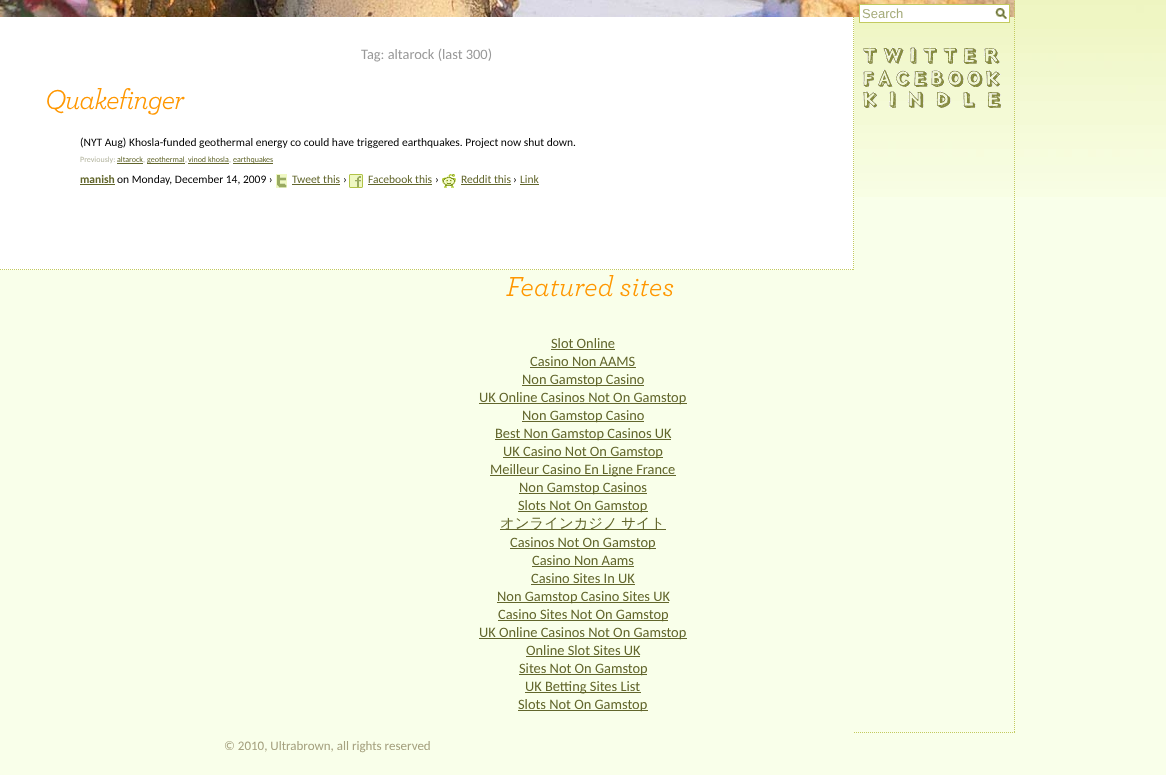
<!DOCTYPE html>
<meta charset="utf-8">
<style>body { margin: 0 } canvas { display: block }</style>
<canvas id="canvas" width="1166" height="775"></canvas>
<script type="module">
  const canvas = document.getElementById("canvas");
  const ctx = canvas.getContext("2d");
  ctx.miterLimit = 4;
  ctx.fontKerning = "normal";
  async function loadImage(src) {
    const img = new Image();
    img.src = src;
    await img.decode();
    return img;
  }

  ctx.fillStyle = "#f9ffea";
  ctx.fillRect(0, 0, 1166, 775);
  ctx.drawImage(await loadImage("img1.png"), 854, 0, 312, 197);
  ctx.drawImage(await loadImage("img6.png"), 0, 0, 1015, 17);
  ctx.beginPath();
  ctx.moveTo(1014.5, -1);
  ctx.lineTo(1014.5, 733);
  ctx.strokeStyle = "#c3ca5f";
  ctx.setLineDash([1, 1]);
  ctx.stroke();
  ctx.beginPath();
  ctx.moveTo(854, 732.5);
  ctx.lineTo(1015, 732.5);
  ctx.stroke();
  ctx.fillStyle = "#ffffff";
  ctx.fillRect(860, 5, 149, 17);
  ctx.drawImage(await loadImage("img2.png"), 995, 8, 12, 11);
  ctx.setLineDash([]);
  ctx.strokeRect(859.5, 4.5, 150, 18);
  ctx.font = "13px Liberation Sans";
  ctx.fillStyle = "#a5ab7a";
  ctx.fillText("Search", 862, 18);
  ctx.drawImage(await loadImage("img3.png"), 863, 47, 137, 17);
  ctx.drawImage(await loadImage("img4.png"), 863, 69, 138, 18);
  ctx.drawImage(await loadImage("img5.png"), 863, 91, 139, 17);
  ctx.fillStyle = "#ffffff";
  ctx.fillRect(0, 17, 854, 253);
  ctx.beginPath();
  ctx.moveTo(853.5, 17);
  ctx.lineTo(853.5, 270);
  ctx.setLineDash([1, 1]);
  ctx.stroke();
  ctx.beginPath();
  ctx.moveTo(0, 269.5);
  ctx.lineTo(854, 269.5);
  ctx.stroke();
  ctx.font = "14.4px Carlito";
  ctx.fillStyle = "#999999";
  ctx.fillText("Tag: altarock (last 300)", 361, 59);
  ctx.letterSpacing = "-1px";
  ctx.font = "italic 28.75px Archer";
  ctx.fillStyle = "#ff9700";
  ctx.fillText("Quakefinger", 45, 109);
  ctx.letterSpacing = "0px";
  ctx.font = "11.5px Carlito";
  ctx.fillStyle = "#000000";
  ctx.fillText("(NYT Aug) Khosla-funded geothermal energy co could have triggered earthquakes. Project now shut down.", 80, 146);
  ctx.font = "8px Carlito";
  ctx.fillStyle = "#b5b6a1";
  ctx.fillText("Previously:", 80, 162);
  ctx.fillStyle = "#62662c";
  ctx.fillText("altarock", 117, 162);
  ctx.fillRect(117, 163, 26, 1);
  ctx.fillRect(147, 163, 38, 1);
  ctx.fillText("geothermal", 147, 162);
  ctx.fillText("vinod khosla", 188, 162);
  ctx.fillRect(188, 163, 41, 1);
  ctx.fillRect(233, 163, 40, 1);
  ctx.fillText("earthquakes", 233, 162);
  ctx.fillStyle = "#b5b6a1";
  ctx.fillText(",", 143, 162);
  ctx.fillText(",", 185, 162);
  ctx.fillText(",", 229, 162);
  ctx.font = "bold 11.5px Carlito";
  ctx.fillStyle = "#62662c";
  ctx.fillText("manish", 80, 183);
  ctx.fillRect(80, 184, 35, 1);
  ctx.font = "11.5px Carlito";
  ctx.fillStyle = "#000000";
  ctx.fillText("on Monday, December 14, 2009 ›", 117, 183);
  ctx.drawImage(await loadImage("img7.png"), 276, 174, 11, 14);
  ctx.fillStyle = "#62662c";
  ctx.fillText("Tweet this", 292, 183);
  ctx.fillRect(292, 184, 48, 1);
  ctx.fillStyle = "#000000";
  ctx.fillText("›", 343, 183);
  ctx.drawImage(await loadImage("img8.png"), 349, 174, 14, 14);
  ctx.fillStyle = "#62662c";
  ctx.fillText("Facebook this", 368, 183);
  ctx.fillRect(368, 184, 64, 1);
  ctx.fillStyle = "#000000";
  ctx.fillText("›", 435, 183);
  ctx.drawImage(await loadImage("img9.png"), 442, 174, 14, 14);
  ctx.fillStyle = "#62662c";
  ctx.fillText("Reddit this", 461, 183);
  ctx.fillRect(461, 184, 50, 1);
  ctx.fillStyle = "#000000";
  ctx.fillText("›", 513, 183);
  ctx.fillStyle = "#62662c";
  ctx.fillText("Link", 520, 183);
  ctx.fillRect(520, 184, 19, 1);
  ctx.font = "italic 28.75px Archer";
  ctx.fillStyle = "#ff9700";
  ctx.fillText("Featured sites", 506, 296);
  ctx.font = "14.4px Carlito";
  ctx.fillStyle = "#62662c";
  ctx.fillText("Slot Online", 551, 348);
  ctx.fillRect(551, 349, 64, 1);
  ctx.fillText("Casino Non AAMS", 530, 366);
  ctx.fillRect(530, 367, 106, 1);
  ctx.fillRect(522, 385, 122, 1);
  ctx.fillText("Non Gamstop Casino", 522, 384);
  ctx.fillRect(479, 403, 208, 1);
  ctx.fillText("UK Online Casinos Not On Gamstop", 479, 402);
  ctx.fillRect(522, 421, 122, 1);
  ctx.fillText("Non Gamstop Casino", 522, 420);
  ctx.fillRect(495, 439, 176, 1);
  ctx.fillText("Best Non Gamstop Casinos UK", 495, 438);
  ctx.fillRect(503, 457, 160, 1);
  ctx.fillText("UK Casino Not On Gamstop", 503, 456);
  ctx.fillRect(490, 475, 186, 1);
  ctx.fillText("Meilleur Casino En Ligne France", 490, 474);
  ctx.fillRect(519, 493, 128, 1);
  ctx.fillText("Non Gamstop Casinos", 519, 492);
  ctx.fillRect(518, 511, 130, 1);
  ctx.fillText("Slots Not On Gamstop", 518, 510);
  ctx.fillRect(500, 529, 166, 1);
  ctx.wordSpacing = "-1px";
  ctx.font = "500 14.4px WenQuanYi Zen Hei";
  ctx.fillText("オンラインカジノ サイト", 500, 528);
  ctx.fillRect(510, 548, 146, 1);
  ctx.wordSpacing = "0px";
  ctx.font = "14.4px Carlito";
  ctx.fillText("Casinos Not On Gamstop", 510, 547);
  ctx.fillText("Casino Non Aams", 532, 565);
  ctx.fillRect(532, 566, 102, 1);
  ctx.fillText("Casino Sites In UK", 531, 583);
  ctx.fillRect(531, 584, 104, 1);
  ctx.fillRect(497, 602, 172, 1);
  ctx.fillText("Non Gamstop Casino Sites UK", 497, 601);
  ctx.fillRect(498, 620, 170, 1);
  ctx.fillText("Casino Sites Not On Gamstop", 498, 619);
  ctx.fillRect(479, 638, 208, 1);
  ctx.fillText("UK Online Casinos Not On Gamstop", 479, 637);
  ctx.fillText("Online Slot Sites UK", 526, 655);
  ctx.fillRect(526, 656, 114, 1);
  ctx.fillRect(519, 674, 128, 1);
  ctx.fillText("Sites Not On Gamstop", 519, 673);
  ctx.fillRect(525, 692, 116, 1);
  ctx.fillText("UK Betting Sites List", 525, 691);
  ctx.fillRect(518, 710, 130, 1);
  ctx.fillText("Slots Not On Gamstop", 518, 709);
  ctx.font = "13px Carlito";
  ctx.fillStyle = "#a5a17f";
  ctx.fillText("© 2010, Ultrabrown, all rights reserved", 224, 750);
</script>
